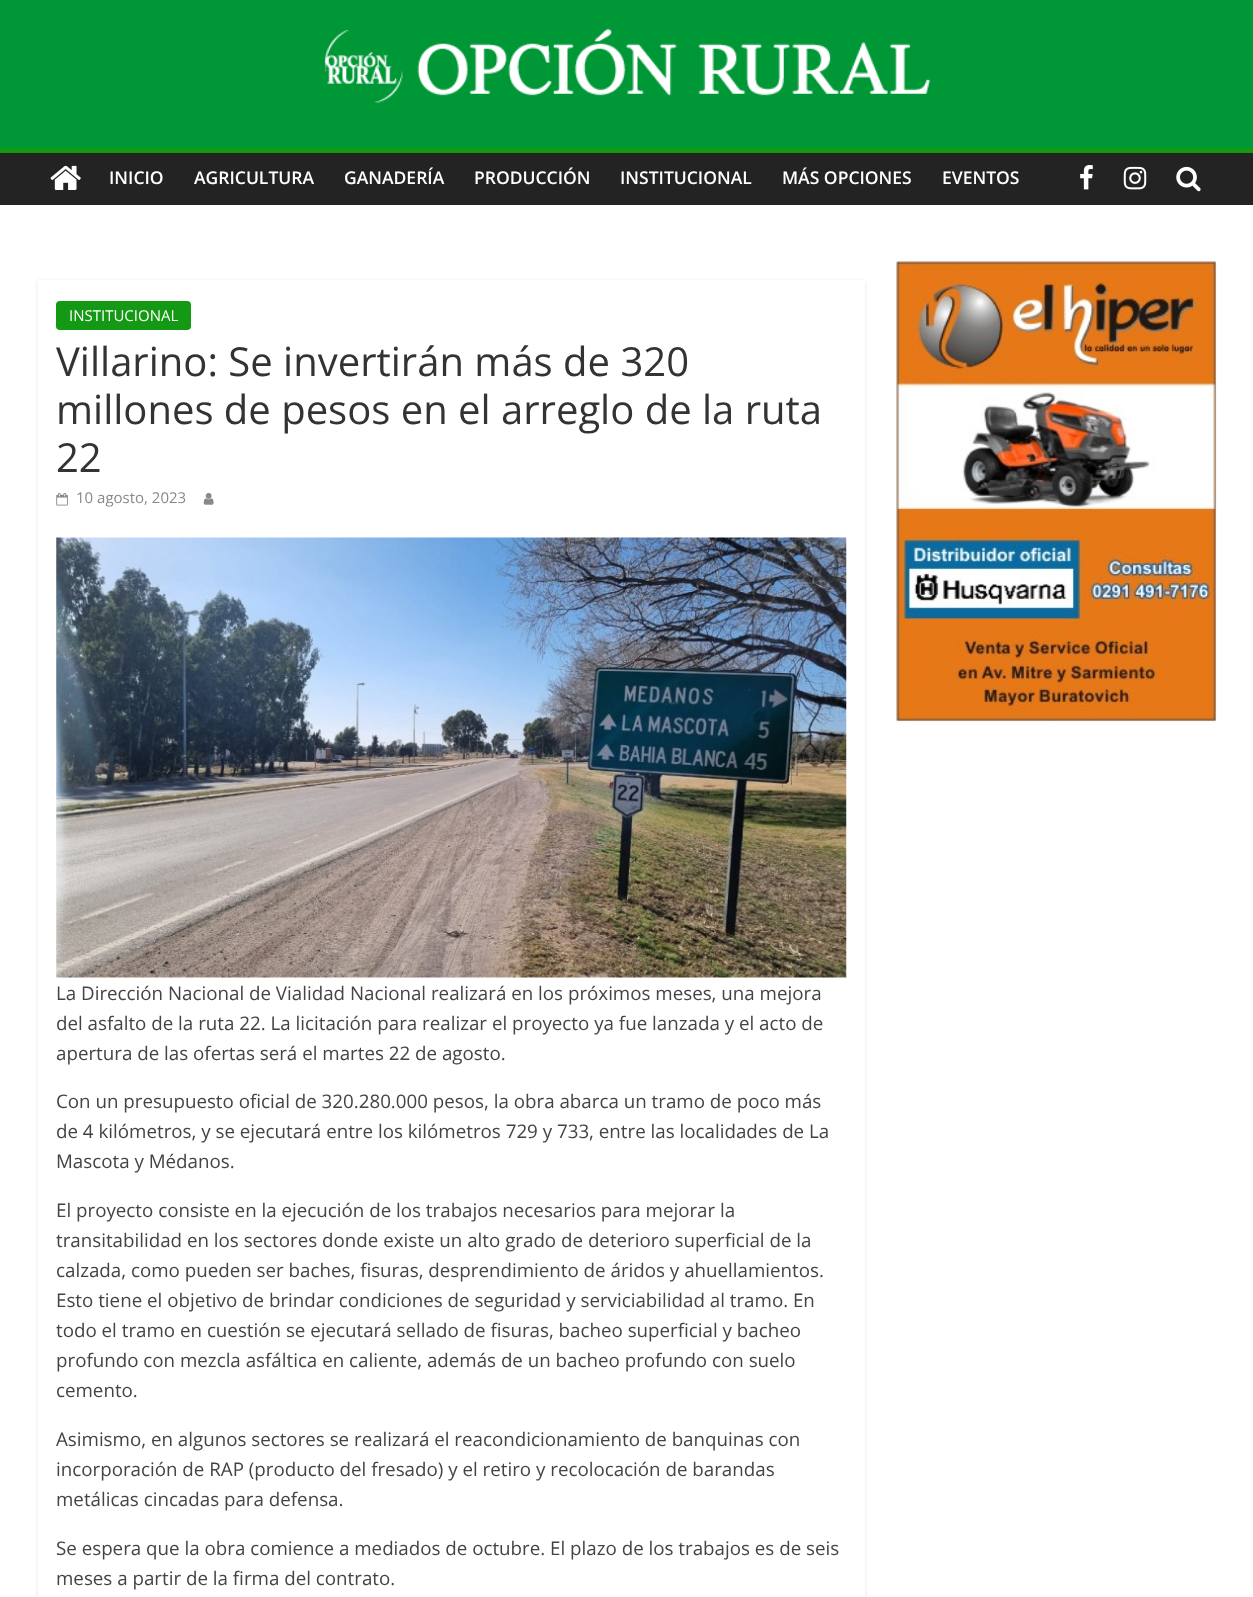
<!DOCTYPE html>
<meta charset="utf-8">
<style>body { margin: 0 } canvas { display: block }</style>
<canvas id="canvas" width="1253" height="1597"></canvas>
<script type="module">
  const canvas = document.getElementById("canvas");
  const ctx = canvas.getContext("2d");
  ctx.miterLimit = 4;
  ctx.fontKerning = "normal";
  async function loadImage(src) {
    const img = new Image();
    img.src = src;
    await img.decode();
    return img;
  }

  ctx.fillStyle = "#009737";
  ctx.fillRect(0, 0, 1253, 1597);
  ctx.drawImage(await loadImage("img1.png"), 324, 28, 607, 75);
  ctx.fillStyle = "#232323";
  ctx.fillRect(0, 153, 1253, 52);
  ctx.fillStyle = "#139913";
  ctx.fillRect(0, 148, 1253, 5);
  ctx.drawImage(await loadImage("img2.png"), 50, 165, 31, 25);
  ctx.font = "600 17.5px Open Sans";
  ctx.fillStyle = "#ffffff";
  ctx.fillText("INICIO", 109, 184);
  ctx.fillText("AGRICULTURA", 194, 184);
  ctx.fillText("GANADERÍA", 344, 184);
  ctx.fillText("PRODUCCIÓN", 474, 184);
  ctx.fillText("INSTITUCIONAL", 620, 184);
  ctx.fillText("MÁS OPCIONES", 782, 184);
  ctx.fillText("EVENTOS", 942, 184);
  ctx.drawImage(await loadImage("img3.png"), 1080, 165, 13, 25);
  ctx.drawImage(await loadImage("img4.png"), 1123, 166, 24, 24);
  ctx.drawImage(await loadImage("img5.png"), 1176, 166, 25, 26);
  ctx.fillRect(0, 205, 1253, 1392);
  ctx.save();
  ctx.beginPath();
  ctx.moveTo(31, 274);
  ctx.lineTo(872, 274);
  ctx.lineTo(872, 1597);
  ctx.lineTo(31, 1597);
  ctx.closePath();
  ctx.moveTo(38, 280);
  ctx.lineTo(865, 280);
  ctx.lineTo(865, 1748);
  ctx.lineTo(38, 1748);
  ctx.closePath();
  ctx.clip("evenodd");
  ctx.fillStyle = "rgba(0, 0, 0, 0.1)";
  ctx.filter = "blur(2px)";
  ctx.beginPath();
  ctx.rect(38, 281, 827, 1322);
  ctx.fill();
  ctx.filter = "none";
  ctx.restore();
  ctx.fillStyle = "#139913";
  ctx.beginPath();
  ctx.roundRect(56, 301, 135, 29, 4);
  ctx.fill();
  ctx.font = "15px Open Sans";
  ctx.fillStyle = "#ffffff";
  ctx.fillText("INSTITUCIONAL", 69, 321);
  ctx.font = "40px Open Sans";
  ctx.fillStyle = "#333333";
  ctx.fillText("Villarino: Se invertirán más de 320", 56, 376);
  ctx.fillText("millones de pesos en el arreglo de la ruta", 56, 424);
  ctx.fillText("22", 56, 472);
  ctx.drawImage(await loadImage("img6.png"), 56, 493, 12, 13);
  ctx.font = "15px Open Sans";
  ctx.fillStyle = "#888888";
  ctx.fillText("10 agosto, 2023", 76, 503);
  ctx.drawImage(await loadImage("img7.png"), 203, 493, 11, 12);
  ctx.drawImage(await loadImage("img8.png"), 56, 537, 791, 441);
  ctx.font = "18.75px Open Sans";
  ctx.fillStyle = "#444444";
  ctx.fillText("La Dirección Nacional de Vialidad Nacional realizará en los próximos meses, una mejora", 56, 1000);
  ctx.fillText("del asfalto de la ruta 22. La licitación para realizar el proyecto ya fue lanzada y el acto de", 56, 1030);
  ctx.fillText("apertura de las ofertas será el martes 22 de agosto.", 56, 1060);
  ctx.fillText("Con un presupuesto oficial de 320.280.000 pesos, la obra abarca un tramo de poco más", 56, 1108);
  ctx.fillText("de 4 kilómetros, y se ejecutará entre los kilómetros 729 y 733, entre las localidades de La", 56, 1138);
  ctx.fillText("Mascota y Médanos.", 56, 1168);
  ctx.fillText("El proyecto consiste en la ejecución de los trabajos necesarios para mejorar la", 56, 1217);
  ctx.fillText("transitabilidad en los sectores donde existe un alto grado de deterioro superficial de la", 56, 1247);
  ctx.fillText("calzada, como pueden ser baches, fisuras, desprendimiento de áridos y ahuellamientos.", 56, 1277);
  ctx.fillText("Esto tiene el objetivo de brindar condiciones de seguridad y serviciabilidad al tramo. En", 56, 1307);
  ctx.fillText("todo el tramo en cuestión se ejecutará sellado de fisuras, bacheo superficial y bacheo", 56, 1337);
  ctx.fillText("profundo con mezcla asfáltica en caliente, además de un bacheo profundo con suelo", 56, 1367);
  ctx.fillText("cemento.", 56, 1397);
  ctx.fillText("Asimismo, en algunos sectores se realizará el reacondicionamiento de banquinas con", 56, 1446);
  ctx.fillText("incorporación de RAP (producto del fresado) y el retiro y recolocación de barandas", 56, 1476);
  ctx.fillText("metálicas cincadas para defensa.", 56, 1506);
  ctx.fillText("Se espera que la obra comience a mediados de octubre. El plazo de los trabajos es de seis", 56, 1555);
  ctx.fillText("meses a partir de la firma del contrato.", 56, 1585);
  ctx.drawImage(await loadImage("img9.png"), 896, 261, 321, 461);
</script>
